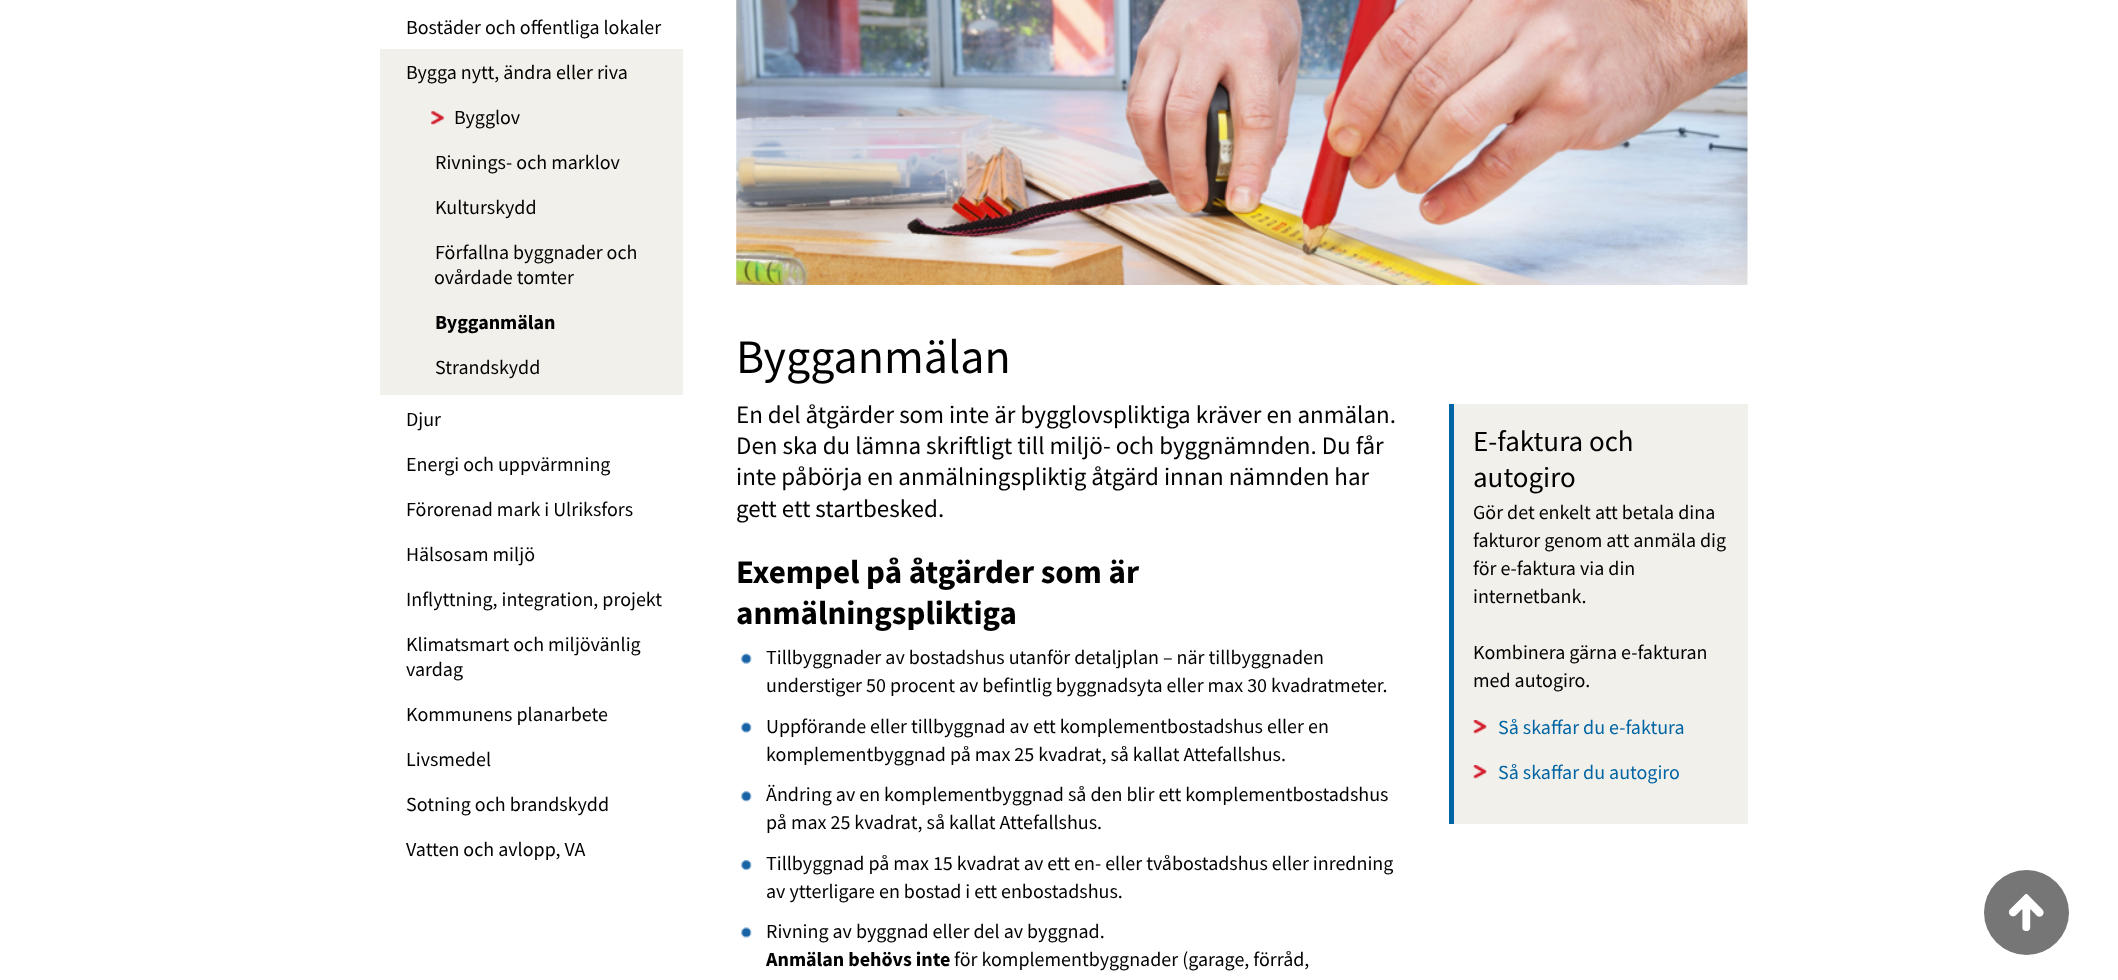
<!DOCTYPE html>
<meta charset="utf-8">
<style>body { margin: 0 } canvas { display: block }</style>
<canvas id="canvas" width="2118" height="980"></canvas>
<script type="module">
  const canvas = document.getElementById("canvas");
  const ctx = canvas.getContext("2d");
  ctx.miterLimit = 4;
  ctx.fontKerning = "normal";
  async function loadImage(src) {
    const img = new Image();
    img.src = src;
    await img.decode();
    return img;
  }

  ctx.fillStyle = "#ffffff";
  ctx.fillRect(0, 0, 2118, 980);
  ctx.font = "20px Source Sans Pro";
  ctx.fillStyle = "#000000";
  ctx.fillText("Bostäder och offentliga lokaler", 406, 34);
  ctx.fillStyle = "#f2f0eb";
  ctx.fillRect(380, 49, 303, 346);
  ctx.fillStyle = "#000000";
  ctx.fillText("Bygga nytt, ändra eller riva", 406, 79);
  ctx.drawImage(await loadImage("img1.png"), 431, 111, 13, 14);
  ctx.fillText("Bygglov", 454, 124);
  ctx.fillText("Rivnings- och marklov", 435, 169);
  ctx.fillText("Kulturskydd", 435, 214);
  ctx.fillText("Förfallna byggnader och", 435, 259);
  ctx.fillText("ovårdade tomter", 434, 284);
  ctx.font = "bold 20px Source Sans Pro";
  ctx.fillText("Bygganmälan", 435, 329);
  ctx.font = "20px Source Sans Pro";
  ctx.fillText("Strandskydd", 435, 374);
  ctx.fillText("Djur", 406, 426);
  ctx.fillText("Energi och uppvärmning", 406, 471);
  ctx.fillText("Förorenad mark i Ulriksfors", 406, 516);
  ctx.fillText("Hälsosam miljö", 406, 561);
  ctx.fillText("Inflyttning, integration, projekt", 406, 606);
  ctx.fillText("Klimatsmart och miljövänlig", 406, 651);
  ctx.fillText("vardag", 406, 676);
  ctx.fillText("Kommunens planarbete", 406, 721);
  ctx.fillText("Livsmedel", 406, 766);
  ctx.fillText("Sotning och brandskydd", 406, 811);
  ctx.fillText("Vatten och avlopp, VA", 406, 856);
  ctx.drawImage(await loadImage("img2.png"), 736, 0, 1012, 285);
  ctx.font = "48px Source Sans Pro";
  ctx.fillText("Bygganmälan", 736, 373);
  ctx.font = "25px Source Sans Pro";
  ctx.fillText("En del åtgärder som inte är bygglovspliktiga kräver en anmälan.", 736, 423);
  ctx.fillText("Den ska du lämna skriftligt till miljö- och byggnämnden. Du får", 736, 454);
  ctx.fillText("inte påbörja en anmälningspliktig åtgärd innan nämnden har", 736, 485);
  ctx.fillText("gett ett startbesked.", 736, 517);
  ctx.font = "bold 33px Source Sans Pro";
  ctx.fillText("Exempel på åtgärder som är", 736, 583);
  ctx.fillText("anmälningspliktiga", 736, 624);
  ctx.drawImage(await loadImage("img3.png"), 741, 653, 11, 11);
  ctx.font = "20px Source Sans Pro";
  ctx.fillText("Tillbyggnader av bostadshus utanför detaljplan – när tillbyggnaden", 766, 664);
  ctx.fillText("understiger 50 procent av befintlig byggnadsyta eller max 30 kvadratmeter.", 766, 692);
  ctx.drawImage(await loadImage("img4.png"), 741, 722, 11, 11);
  ctx.fillText("Uppförande eller tillbyggnad av ett komplementbostadshus eller en", 766, 733);
  ctx.fillText("komplementbyggnad på max 25 kvadrat, så kallat Attefallshus.", 766, 761);
  ctx.drawImage(await loadImage("img5.png"), 741, 791, 11, 11);
  ctx.fillText("Ändring av en komplementbyggnad så den blir ett komplementbostadshus", 766, 801);
  ctx.fillText("på max 25 kvadrat, så kallat Attefallshus.", 766, 829);
  ctx.drawImage(await loadImage("img6.png"), 741, 860, 11, 10);
  ctx.fillText("Tillbyggnad på max 15 kvadrat av ett en- eller tvåbostadshus eller inredning", 766, 870);
  ctx.fillText("av ytterligare en bostad i ett enbostadshus.", 766, 898);
  ctx.drawImage(await loadImage("img4.png"), 741, 927, 11, 11);
  ctx.fillText("Rivning av byggnad eller del av byggnad.", 766, 938);
  ctx.font = "bold 20px Source Sans Pro";
  ctx.fillText("Anmälan behövs inte", 766, 966);
  ctx.font = "20px Source Sans Pro";
  ctx.fillText("för komplementbyggnader (garage, förråd,", 954, 966);
  ctx.fillStyle = "#767676";
  ctx.beginPath();
  ctx.arc(2026.5, 912.5, 42.5, 0, Math.PI * 2);
  ctx.fill();
  ctx.drawImage(await loadImage("img7.png"), 2008, 894, 36, 37);
  ctx.fillStyle = "#f2f0eb";
  ctx.fillRect(1454, 404, 294, 420);
  ctx.fillStyle = "#0065a4";
  ctx.fillRect(1449, 404, 5, 420);
  ctx.font = "29px Source Sans Pro";
  ctx.fillStyle = "#000000";
  ctx.fillText("E-faktura och", 1473, 451);
  ctx.fillText("autogiro", 1473, 487);
  ctx.font = "20px Source Sans Pro";
  ctx.fillText("Gör det enkelt att betala dina", 1473, 519);
  ctx.fillText("fakturor genom att anmäla dig", 1473, 547);
  ctx.fillText("för e-faktura via din", 1473, 575);
  ctx.fillText("internetbank.", 1473, 603);
  ctx.fillText("Kombinera gärna e-fakturan", 1473, 659);
  ctx.fillText("med autogiro.", 1473, 687);
  ctx.drawImage(await loadImage("img8.png"), 1473, 720, 14, 14);
  ctx.fillStyle = "#0065a4";
  ctx.fillText("Så skaffar du e-faktura", 1498, 734);
  ctx.drawImage(await loadImage("img9.png"), 1473, 765, 14, 14);
  ctx.fillText("Så skaffar du autogiro", 1498, 779);
</script>
